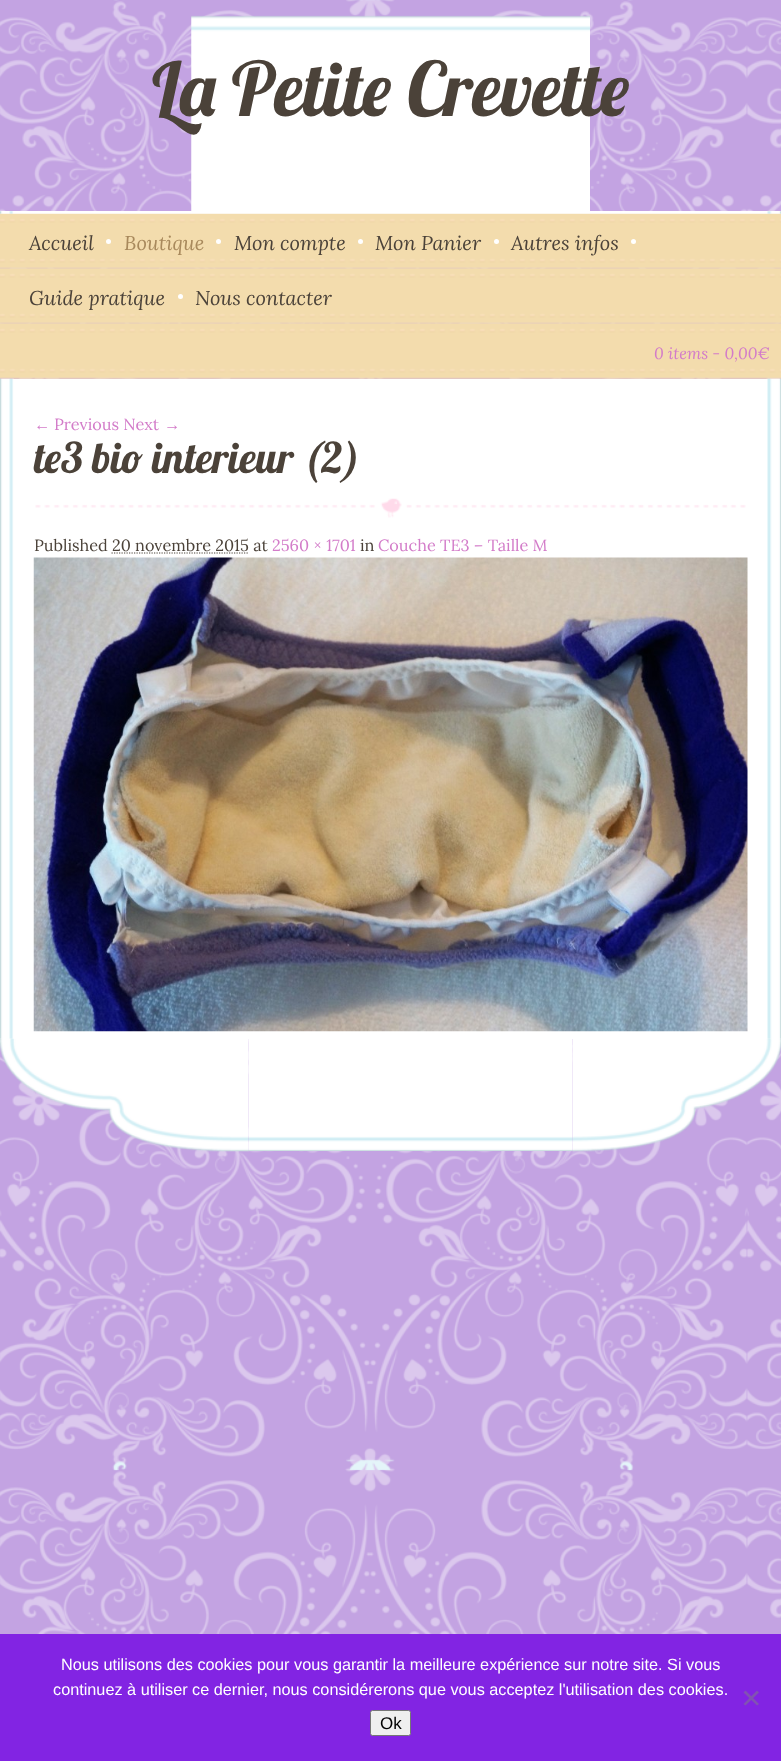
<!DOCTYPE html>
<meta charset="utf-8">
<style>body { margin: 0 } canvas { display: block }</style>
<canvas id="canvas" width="781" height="1761"></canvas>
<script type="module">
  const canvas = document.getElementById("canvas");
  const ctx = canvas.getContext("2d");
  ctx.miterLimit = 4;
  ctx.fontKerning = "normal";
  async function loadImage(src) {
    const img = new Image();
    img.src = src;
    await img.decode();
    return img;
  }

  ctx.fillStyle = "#c3a3e2";
  ctx.fillRect(0, 0, 781, 1761);
  ctx.drawImage(await loadImage("img1.png"), 0, 0, 781, 1634);
  ctx.fillStyle = "#ffffff";
  ctx.fillRect(0, 211, 781, 3);
  ctx.drawImage(await loadImage("img2.png"), 0, 211, 781, 3);
  ctx.drawImage(await loadImage("img3.png"), 191, 15, 399, 196);
  ctx.font = "75px Lobster";
  ctx.fillStyle = "#4b4239";
  ctx.fillText("La Petite Crevette", 152, 116);
  ctx.drawImage(await loadImage("img4.png"), 0, 213, 781, 166);
  ctx.font = "italic 20px Lora";
  ctx.fillText("Accueil", 29, 250);
  ctx.fillStyle = "#ffffff";
  ctx.beginPath();
  ctx.arc(108.5, 241.5, 2.5, 0, Math.PI * 2);
  ctx.fill();
  ctx.fillStyle = "#a8895c";
  ctx.fillText("Boutique", 124, 250);
  ctx.fillStyle = "#ffffff";
  ctx.beginPath();
  ctx.arc(218.5, 241.5, 2.5, 0, Math.PI * 2);
  ctx.fill();
  ctx.fillStyle = "#4b4239";
  ctx.fillText("Mon compte", 234, 250);
  ctx.fillStyle = "#ffffff";
  ctx.beginPath();
  ctx.arc(360.5, 241.5, 2.5, 0, Math.PI * 2);
  ctx.fill();
  ctx.fillStyle = "#4b4239";
  ctx.fillText("Mon Panier", 375, 250);
  ctx.fillStyle = "#ffffff";
  ctx.beginPath();
  ctx.arc(496.5, 241.5, 2.5, 0, Math.PI * 2);
  ctx.fill();
  ctx.fillStyle = "#4b4239";
  ctx.fillText("Autres infos", 511, 250);
  ctx.fillStyle = "#ffffff";
  ctx.beginPath();
  ctx.arc(633.5, 241.5, 2.5, 0, Math.PI * 2);
  ctx.fill();
  ctx.fillStyle = "#4b4239";
  ctx.fillText("Guide pratique", 29, 305);
  ctx.fillStyle = "#ffffff";
  ctx.beginPath();
  ctx.arc(180.5, 296.5, 2.5, 0, Math.PI * 2);
  ctx.fill();
  ctx.fillStyle = "#4b4239";
  ctx.fillText("Nous contacter", 195, 305);
  ctx.font = "italic 16.25px Lora";
  ctx.fillStyle = "#d37cc9";
  ctx.fillText("0 items - 0,00€", 654, 359);
  ctx.fillStyle = "#ffffff";
  ctx.fillRect(0, 379, 781, 660);
  ctx.drawImage(await loadImage("img5.png"), 0, 378, 781, 661);
  ctx.font = "16.25px Liberation Sans";
  ctx.fillStyle = "#d37cc9";
  ctx.fillText("←", 34, 430);
  ctx.font = "16.25px Lora";
  ctx.fillText("Previous Next", 54, 430);
  ctx.font = "16.25px Liberation Sans";
  ctx.fillText("→", 164, 430);
  ctx.font = "42.5px Lobster";
  ctx.fillStyle = "#4b4239";
  ctx.fillText("te3 bio interieur (2)", 34, 473);
  ctx.drawImage(await loadImage("img6.png"), 35, 498, 711, 20);
  ctx.font = "16.25px Lora";
  ctx.fillText("Published 20 novembre 2015 at", 34, 551);
  ctx.fillStyle = "#d37cc9";
  ctx.fillText("2560 × 1701", 272, 551);
  ctx.fillStyle = "#4b4239";
  ctx.fillText("in", 360, 551);
  ctx.fillStyle = "#d37cc9";
  ctx.fillText("Couche TE3 – Taille M", 378, 551);
  ctx.beginPath();
  ctx.moveTo(111.5, 553);
  ctx.lineTo(248.5, 553);
  ctx.strokeStyle = "#4a4339";
  ctx.lineWidth = 1.2;
  ctx.setLineDash([1.25, 1.25]);
  ctx.stroke();
  ctx.drawImage(await loadImage("img7.png"), 33, 557, 715, 475);
  ctx.drawImage(await loadImage("img8.png"), 0, 1038, 781, 114);
  ctx.fillStyle = "#8224e3";
  ctx.fillRect(0, 1634, 781, 127);
  ctx.font = "16.25px Liberation Sans";
  ctx.fillStyle = "#ffffff";
  ctx.fillText("Nous utilisons des cookies pour vous garantir la meilleure expérience sur notre site. Si vous", 61, 1670);
  ctx.fillText("continuez à utiliser ce dernier, nous considérerons que vous acceptez l'utilisation des cookies.", 53, 1695);
  ctx.fillStyle = "#8152b2";
  ctx.beginPath();
  ctx.moveTo(757, 1690.5);
  ctx.lineTo(759, 1692.5);
  ctx.lineTo(745.5, 1705.5);
  ctx.lineTo(743.5, 1704);
  ctx.closePath();
  ctx.fill();
  ctx.beginPath();
  ctx.moveTo(743.5, 1692.5);
  ctx.lineTo(745.5, 1690.5);
  ctx.lineTo(759, 1704);
  ctx.lineTo(757, 1705.5);
  ctx.closePath();
  ctx.fill();
  ctx.fillStyle = "#efefef";
  ctx.beginPath();
  ctx.roundRect(370.5, 1710.5, 40, 25, 2);
  ctx.fill();
  ctx.strokeStyle = "#767676";
  ctx.lineWidth = 1;
  ctx.setLineDash([]);
  ctx.stroke();
  ctx.font = "17px Liberation Sans";
  ctx.fillStyle = "#000000";
  ctx.fillText("Ok", 380, 1729);
</script>
